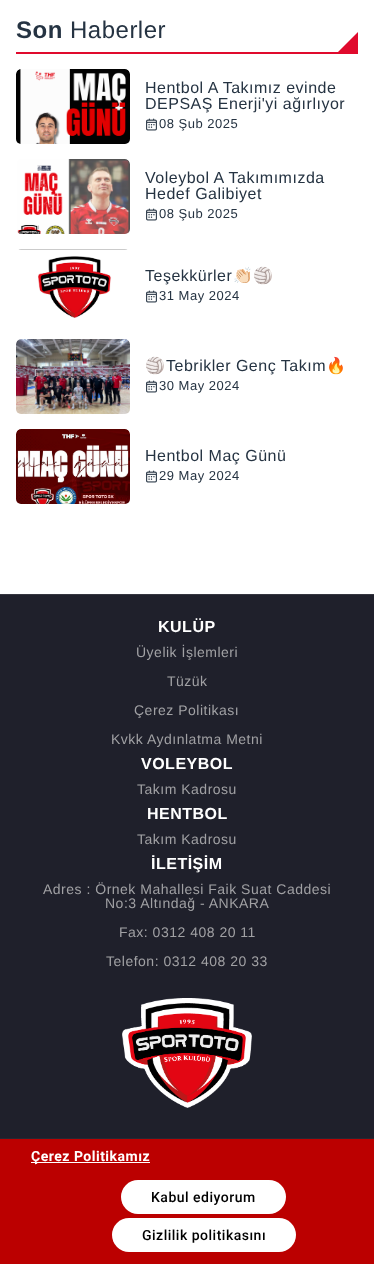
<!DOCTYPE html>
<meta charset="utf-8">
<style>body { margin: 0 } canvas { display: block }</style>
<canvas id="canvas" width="374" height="1264"></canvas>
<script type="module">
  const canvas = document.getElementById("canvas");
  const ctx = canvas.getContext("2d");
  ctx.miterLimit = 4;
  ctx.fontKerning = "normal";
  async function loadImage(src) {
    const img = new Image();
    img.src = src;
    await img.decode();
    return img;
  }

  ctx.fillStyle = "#ffffff";
  ctx.fillRect(0, 0, 374, 1264);
  ctx.fillStyle = "#e00a2d";
  ctx.fillRect(16, 52, 342, 2);
  ctx.letterSpacing = "0.5px";
  ctx.font = "bold 24px Liberation Sans";
  ctx.fillStyle = "#253342";
  ctx.fillText("Son", 16, 38);
  ctx.font = "24px Liberation Sans";
  ctx.fillText("Haberler", 70, 38);
  ctx.fillStyle = "#e00a2d";
  ctx.beginPath();
  ctx.moveTo(358, 52);
  ctx.lineTo(338, 52);
  ctx.lineTo(358, 32);
  ctx.closePath();
  ctx.fill();
  ctx.drawImage(await loadImage("img1.png"), 16, 69, 114, 75);
  ctx.font = "16px Liberation Sans";
  ctx.fillStyle = "#253342";
  ctx.fillText("Hentbol A Takımız evinde", 145, 93);
  ctx.fillText("DEPSAŞ Enerji'yi ağırlıyor", 145, 109);
  ctx.drawImage(await loadImage("img2.png"), 146, 118, 11, 13);
  ctx.font = "13px Liberation Sans";
  ctx.fillText("08 Şub 2025", 159, 128);
  ctx.drawImage(await loadImage("img3.png"), 17, 159, 113, 75);
  ctx.font = "16px Liberation Sans";
  ctx.fillText("Voleybol A Takımımızda", 145, 183);
  ctx.fillText("Hedef Galibiyet", 145, 199);
  ctx.drawImage(await loadImage("img2.png"), 146, 208, 11, 13);
  ctx.font = "13px Liberation Sans";
  ctx.fillText("08 Şub 2025", 159, 218);
  ctx.drawImage(await loadImage("img4.png"), 18, 249, 110, 69);
  ctx.font = "16px Liberation Sans";
  ctx.fillText("Teşekkürler", 145, 281);
  ctx.font = "16px Noto Color Emoji";
  ctx.fillText("👏🏻🏐", 233, 281);
  ctx.drawImage(await loadImage("img2.png"), 146, 290, 11, 13);
  ctx.font = "13px Liberation Sans";
  ctx.fillText("31 May 2024", 159, 300);
  ctx.drawImage(await loadImage("img5.png"), 16, 339, 114, 75);
  ctx.font = "16px Noto Color Emoji";
  ctx.fillText("🏐", 145, 371);
  ctx.font = "16px Liberation Sans";
  ctx.fillText("Tebrikler Genç Takım", 166, 371);
  ctx.font = "16px Noto Color Emoji";
  ctx.fillText("🔥", 326, 371);
  ctx.drawImage(await loadImage("img2.png"), 146, 380, 11, 13);
  ctx.font = "13px Liberation Sans";
  ctx.fillText("30 May 2024", 159, 390);
  ctx.drawImage(await loadImage("img6.png"), 16, 429, 114, 75);
  ctx.font = "16px Liberation Sans";
  ctx.fillText("Hentbol Maç Günü", 145, 461);
  ctx.drawImage(await loadImage("img2.png"), 146, 470, 11, 13);
  ctx.font = "13px Liberation Sans";
  ctx.fillText("29 May 2024", 159, 480);
  ctx.fillStyle = "#1f202b";
  ctx.fillRect(0, 595, 374, 543);
  ctx.fillStyle = "#353640";
  ctx.fillRect(0, 594, 374, 1);
  ctx.font = "bold 16px Liberation Sans";
  ctx.fillStyle = "#ffffff";
  ctx.fillText("KULÜP", 158, 632);
  ctx.font = "14px Liberation Sans";
  ctx.fillStyle = "#a1a1a4";
  ctx.fillText("Üyelik İşlemleri", 136, 657);
  ctx.fillText("Tüzük", 167, 686);
  ctx.fillText("Çerez Politikası", 134, 715);
  ctx.fillText("Kvkk Aydınlatma Metni", 111, 744);
  ctx.font = "bold 16px Liberation Sans";
  ctx.fillStyle = "#ffffff";
  ctx.fillText("VOLEYBOL", 141, 769);
  ctx.font = "14px Liberation Sans";
  ctx.fillStyle = "#a1a1a4";
  ctx.fillText("Takım Kadrosu", 137, 794);
  ctx.font = "bold 16px Liberation Sans";
  ctx.fillStyle = "#ffffff";
  ctx.fillText("HENTBOL", 147, 819);
  ctx.font = "14px Liberation Sans";
  ctx.fillStyle = "#a1a1a4";
  ctx.fillText("Takım Kadrosu", 137, 844);
  ctx.font = "bold 16px Liberation Sans";
  ctx.fillStyle = "#ffffff";
  ctx.fillText("İLETİŞİM", 151, 869);
  ctx.font = "14px Liberation Sans";
  ctx.fillStyle = "#a1a1a4";
  ctx.fillText("Adres : Örnek Mahallesi Faik Suat Caddesi", 43, 894);
  ctx.fillText("No:3 Altındağ - ANKARA", 105, 908);
  ctx.fillText("Fax: 0312 408 20 11", 119, 937);
  ctx.fillText("Telefon: 0312 408 20 33", 106, 966);
  ctx.drawImage(await loadImage("img7.png"), 122, 998, 130, 110);
  ctx.fillStyle = "#272833";
  ctx.fillRect(0, 1138, 374, 1);
  ctx.fillStyle = "#bb0000";
  ctx.fillRect(0, 1139, 374, 125);
  ctx.fillStyle = "#ffffff";
  ctx.fillRect(31, 1162, 119, 1);
  ctx.font = "bold 14px Roboto";
  ctx.fillText("Çerez Politikamız", 31, 1161);
  ctx.beginPath();
  ctx.roundRect(121, 1180, 165, 34, 17);
  ctx.fill();
  ctx.font = "500 14px Roboto";
  ctx.fillStyle = "#000000";
  ctx.fillText("Kabul ediyorum", 151, 1202);
  ctx.fillStyle = "#ffffff";
  ctx.beginPath();
  ctx.roundRect(112, 1218, 184, 34, 17);
  ctx.fill();
  ctx.fillStyle = "#000000";
  ctx.fillText("Gizlilik politikasını", 142, 1240);
</script>
